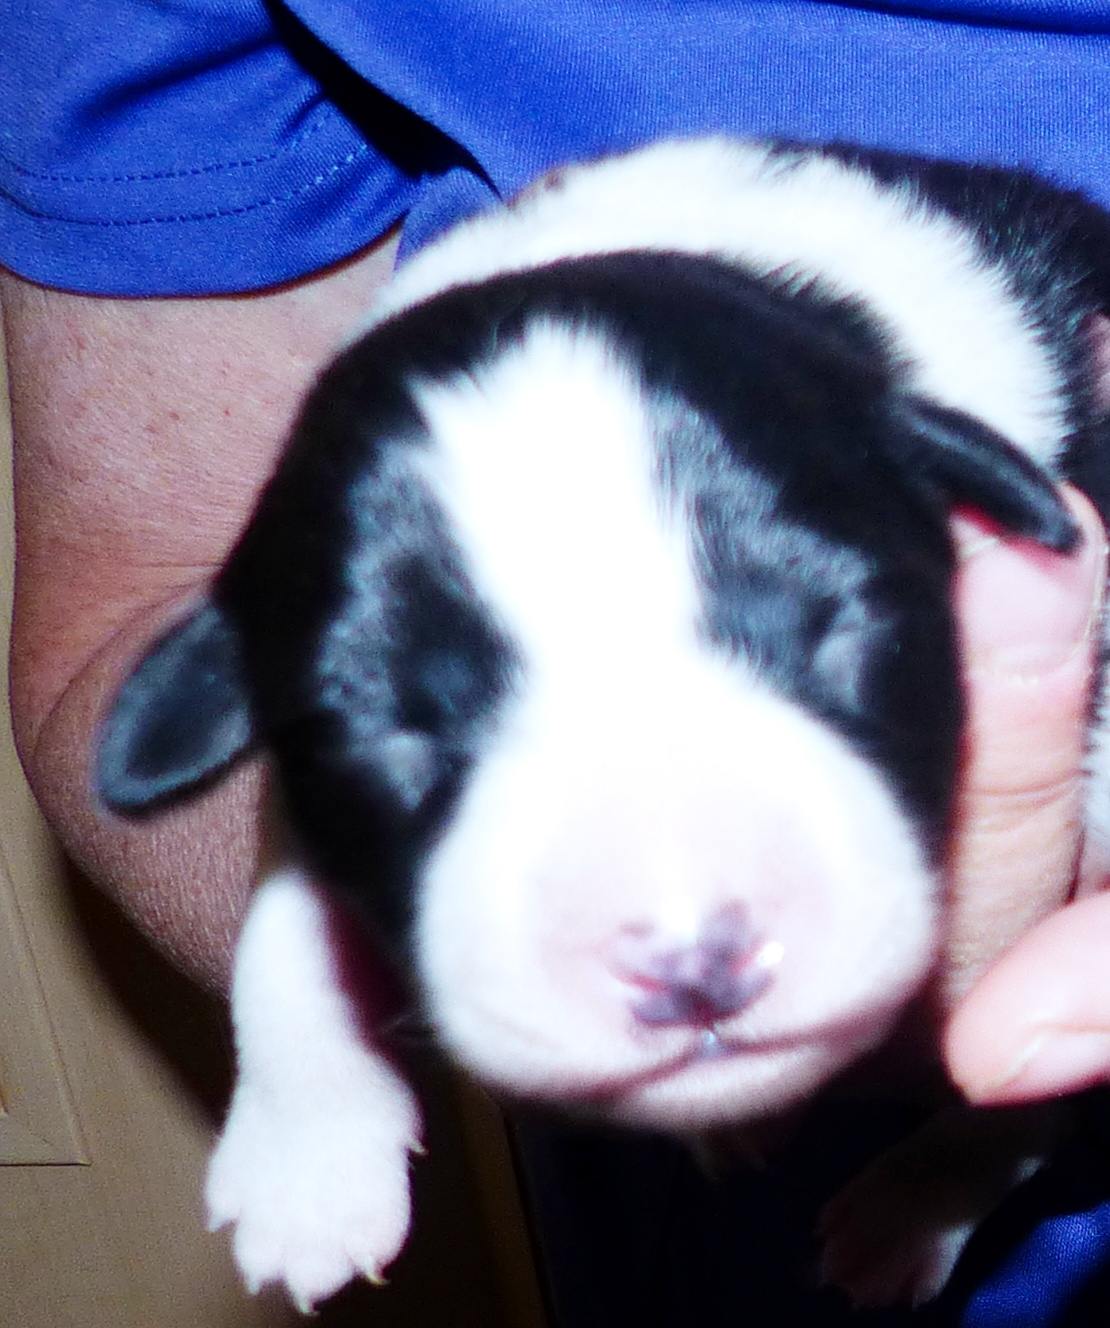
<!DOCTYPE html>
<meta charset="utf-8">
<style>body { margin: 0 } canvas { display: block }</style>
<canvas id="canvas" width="1110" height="1328"></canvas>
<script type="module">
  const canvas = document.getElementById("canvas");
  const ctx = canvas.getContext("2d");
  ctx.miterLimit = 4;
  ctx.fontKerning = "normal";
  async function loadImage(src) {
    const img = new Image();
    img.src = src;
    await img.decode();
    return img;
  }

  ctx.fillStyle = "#ffffff";
  ctx.fillRect(0, 0, 1110, 1328);
  ctx.drawImage(await loadImage("img1.png"), 0, 0, 1110, 1328);
</script>
